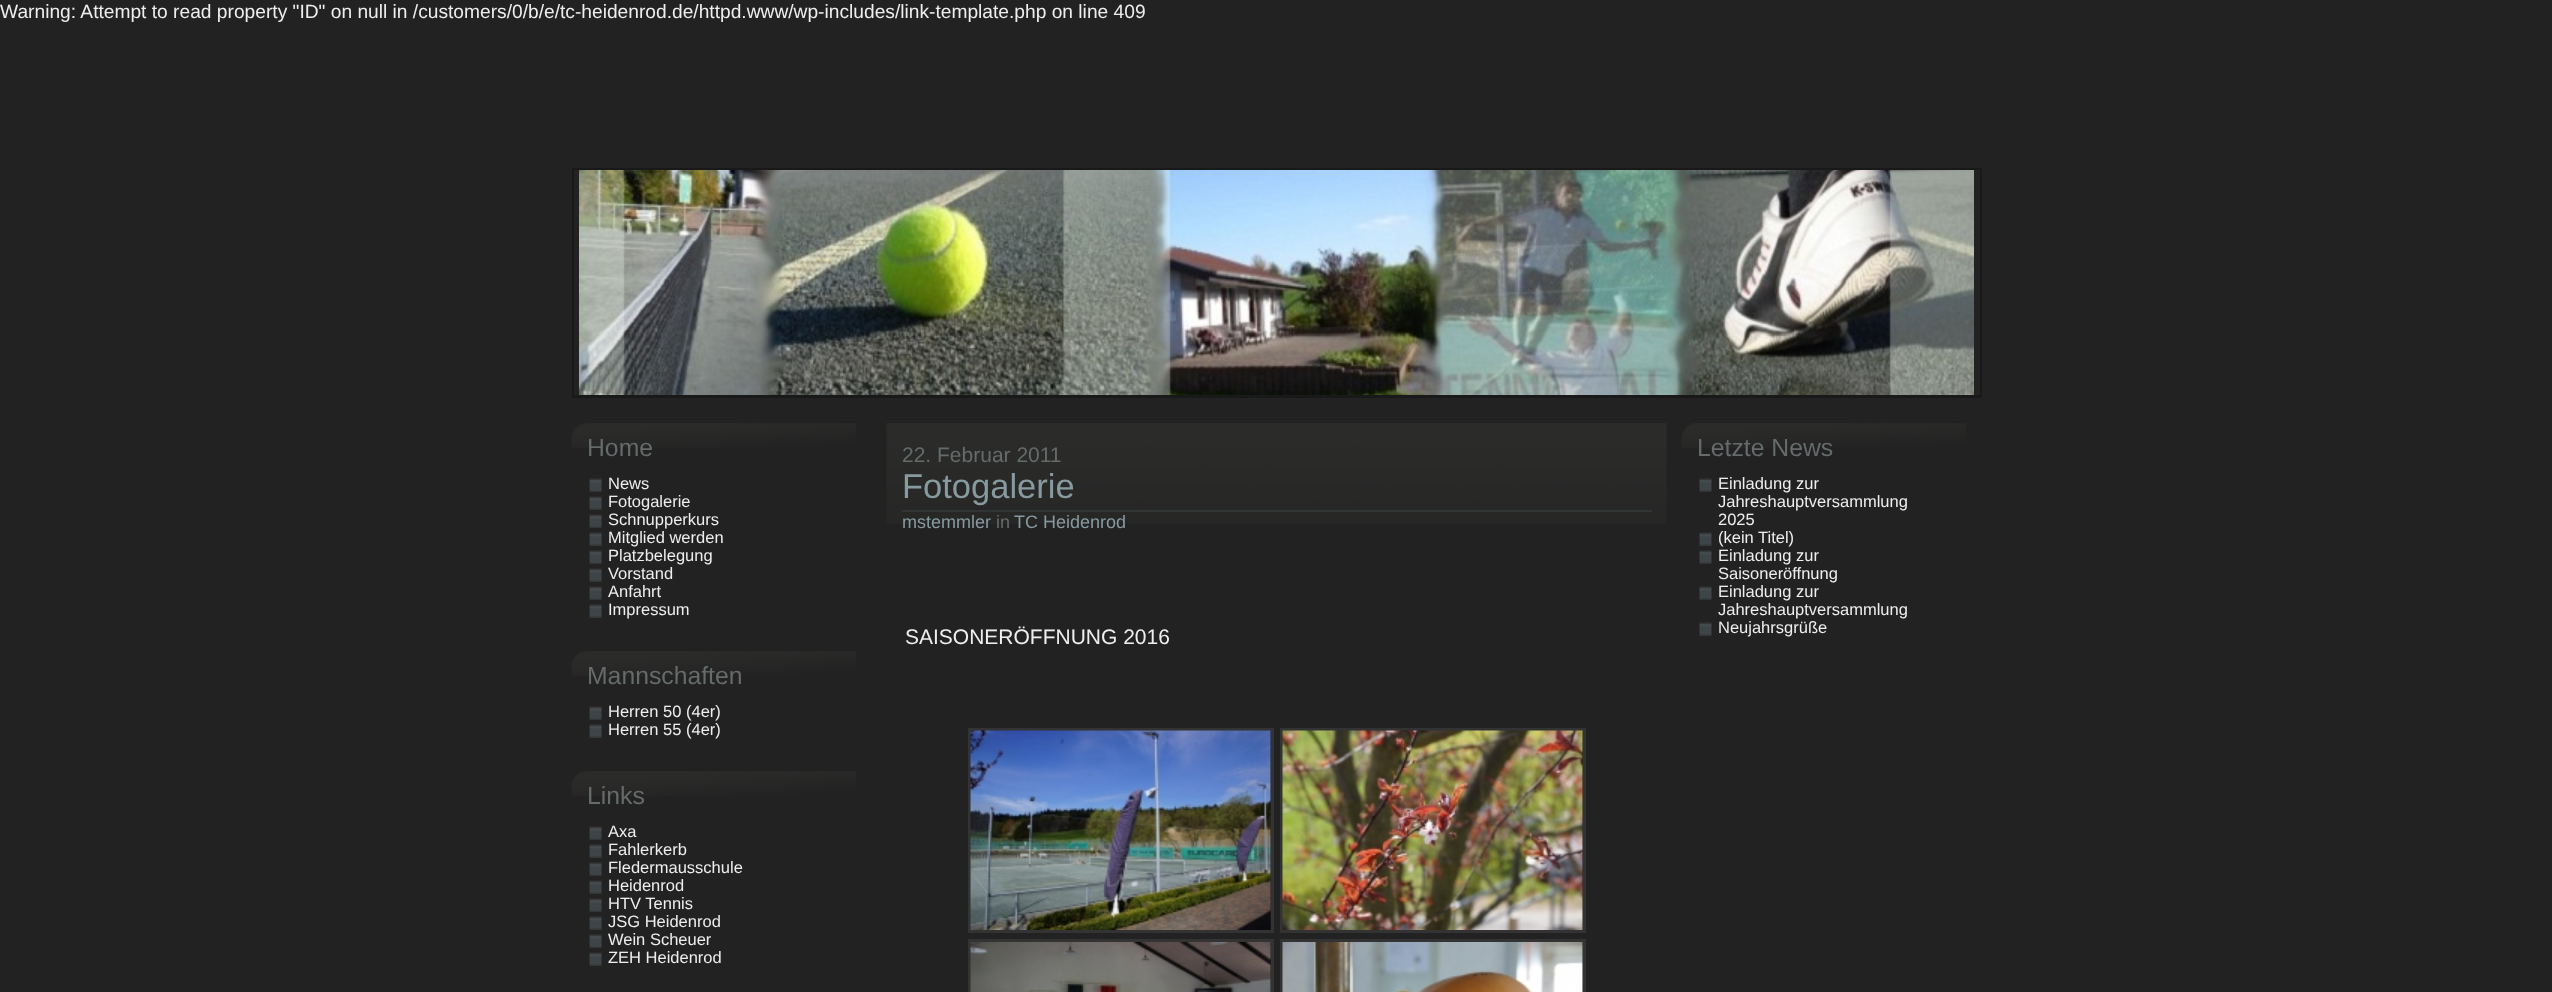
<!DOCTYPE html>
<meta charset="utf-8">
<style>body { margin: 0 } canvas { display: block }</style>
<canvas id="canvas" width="2552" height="992"></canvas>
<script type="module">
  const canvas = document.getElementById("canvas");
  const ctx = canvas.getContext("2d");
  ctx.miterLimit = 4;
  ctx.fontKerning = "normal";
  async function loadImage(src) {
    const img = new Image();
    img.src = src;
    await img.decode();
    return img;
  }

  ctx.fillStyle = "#232222";
  ctx.fillRect(0, 0, 2552, 992);
  ctx.font = "19.2px Liberation Sans";
  ctx.fillStyle = "#eeeeee";
  ctx.fillText("Warning: Attempt to read property \"ID\" on null in /customers/0/b/e/tc-heidenrod.de/httpd.www/wp-includes/link-template.php on line 409", 0, 18);
  ctx.drawImage(await loadImage("img1.png"), 579, 170, 1395, 225);
  ctx.fillStyle = "#191919";
  ctx.fillRect(572, 168, 1410, 2);
  ctx.fillRect(1980, 168, 2, 230);
  ctx.fillRect(572, 395, 1410, 3);
  ctx.fillRect(572, 168, 2, 230);
  ctx.drawImage(await loadImage("img2.png"), 571, 423, 285, 25);
  ctx.font = "24.75px Liberation Sans";
  ctx.fillStyle = "#656a6b";
  ctx.fillText("Home", 587, 456);
  ctx.drawImage(await loadImage("img3.png"), 589, 478, 13, 14);
  ctx.font = "16.5px Liberation Sans";
  ctx.fillStyle = "#eeeeee";
  ctx.fillText("News", 608, 489);
  ctx.drawImage(await loadImage("img3.png"), 589, 496, 13, 14);
  ctx.fillText("Fotogalerie", 608, 507);
  ctx.drawImage(await loadImage("img3.png"), 589, 514, 13, 14);
  ctx.fillText("Schnupperkurs", 608, 525);
  ctx.drawImage(await loadImage("img3.png"), 589, 532, 13, 14);
  ctx.fillText("Mitglied werden", 608, 543);
  ctx.drawImage(await loadImage("img3.png"), 589, 550, 13, 14);
  ctx.fillText("Platzbelegung", 608, 561);
  ctx.drawImage(await loadImage("img3.png"), 589, 568, 13, 14);
  ctx.fillText("Vorstand", 608, 579);
  ctx.drawImage(await loadImage("img3.png"), 589, 586, 13, 14);
  ctx.fillText("Anfahrt", 608, 597);
  ctx.drawImage(await loadImage("img3.png"), 589, 604, 13, 14);
  ctx.fillText("Impressum", 608, 615);
  ctx.drawImage(await loadImage("img2.png"), 571, 651, 285, 25);
  ctx.font = "24.75px Liberation Sans";
  ctx.fillStyle = "#656a6b";
  ctx.fillText("Mannschaften", 587, 684);
  ctx.drawImage(await loadImage("img3.png"), 589, 706, 13, 14);
  ctx.font = "16.5px Liberation Sans";
  ctx.fillStyle = "#eeeeee";
  ctx.fillText("Herren 50 (4er)", 608, 717);
  ctx.drawImage(await loadImage("img3.png"), 589, 724, 13, 14);
  ctx.fillText("Herren 55 (4er)", 608, 735);
  ctx.drawImage(await loadImage("img2.png"), 571, 771, 285, 25);
  ctx.font = "24.75px Liberation Sans";
  ctx.fillStyle = "#656a6b";
  ctx.fillText("Links", 587, 804);
  ctx.drawImage(await loadImage("img3.png"), 589, 826, 13, 14);
  ctx.font = "16.5px Liberation Sans";
  ctx.fillStyle = "#eeeeee";
  ctx.fillText("Axa", 608, 837);
  ctx.drawImage(await loadImage("img3.png"), 589, 844, 13, 14);
  ctx.fillText("Fahlerkerb", 608, 855);
  ctx.drawImage(await loadImage("img3.png"), 589, 862, 13, 14);
  ctx.fillText("Fledermausschule", 608, 873);
  ctx.drawImage(await loadImage("img3.png"), 589, 880, 13, 14);
  ctx.fillText("Heidenrod", 608, 891);
  ctx.drawImage(await loadImage("img3.png"), 589, 898, 13, 14);
  ctx.fillText("HTV Tennis", 608, 909);
  ctx.drawImage(await loadImage("img3.png"), 589, 916, 13, 14);
  ctx.fillText("JSG Heidenrod", 608, 927);
  ctx.drawImage(await loadImage("img3.png"), 589, 934, 13, 14);
  ctx.fillText("Wein Scheuer", 608, 945);
  ctx.drawImage(await loadImage("img3.png"), 589, 952, 13, 14);
  ctx.fillText("ZEH Heidenrod", 608, 963);
  ctx.drawImage(await loadImage("img4.png"), 886, 423, 781, 101);
  ctx.font = "21px Liberation Sans";
  ctx.fillStyle = "#656a6b";
  ctx.fillText("22. Februar 2011", 902, 462);
  ctx.font = "34.5px Liberation Sans";
  ctx.fillStyle = "#869aa0";
  ctx.fillText("Fotogalerie", 902, 498);
  ctx.fillStyle = "#313435";
  ctx.fillRect(902, 510, 750, 2);
  ctx.font = "18px Liberation Sans";
  ctx.fillStyle = "#869aa0";
  ctx.fillText("mstemmler", 902, 528);
  ctx.fillStyle = "#656a6b";
  ctx.fillText("in", 996, 528);
  ctx.fillStyle = "#869aa0";
  ctx.fillText("TC Heidenrod", 1014, 528);
  ctx.font = "21px Liberation Sans";
  ctx.fillStyle = "#eeeeee";
  ctx.fillText("SAISONERÖFFNUNG 2016", 905, 644);
  ctx.strokeStyle = "#333333";
  ctx.lineWidth = 3;
  ctx.strokeRect(969.5, 729.5, 303, 202);
  ctx.drawImage(await loadImage("img5.png"), 970, 730, 301, 200);
  ctx.strokeRect(1281.5, 729.5, 303, 202);
  ctx.drawImage(await loadImage("img6.png"), 1282, 730, 301, 200);
  ctx.strokeRect(969.5, 940.5, 303, 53);
  ctx.drawImage(await loadImage("img7.png"), 970, 942, 301, 50);
  ctx.strokeRect(1281.5, 940.5, 303, 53);
  ctx.drawImage(await loadImage("img8.png"), 1282, 942, 301, 50);
  ctx.drawImage(await loadImage("img9.png"), 1681, 423, 285, 25);
  ctx.font = "24.75px Liberation Sans";
  ctx.fillStyle = "#656a6b";
  ctx.fillText("Letzte News", 1697, 456);
  ctx.drawImage(await loadImage("img10.png"), 1699, 478, 13, 14);
  ctx.font = "16.5px Liberation Sans";
  ctx.fillStyle = "#eeeeee";
  ctx.fillText("Einladung zur", 1718, 489);
  ctx.fillText("Jahreshauptversammlung", 1718, 507);
  ctx.fillText("2025", 1718, 525);
  ctx.drawImage(await loadImage("img11.png"), 1699, 532, 13, 14);
  ctx.fillText("(kein Titel)", 1718, 543);
  ctx.drawImage(await loadImage("img10.png"), 1699, 550, 13, 14);
  ctx.fillText("Einladung zur", 1718, 561);
  ctx.fillText("Saisoneröffnung", 1718, 579);
  ctx.drawImage(await loadImage("img10.png"), 1699, 586, 13, 14);
  ctx.fillText("Einladung zur", 1718, 597);
  ctx.fillText("Jahreshauptversammlung", 1718, 615);
  ctx.drawImage(await loadImage("img11.png"), 1699, 622, 13, 14);
  ctx.fillText("Neujahrsgrüße", 1718, 633);
</script>
